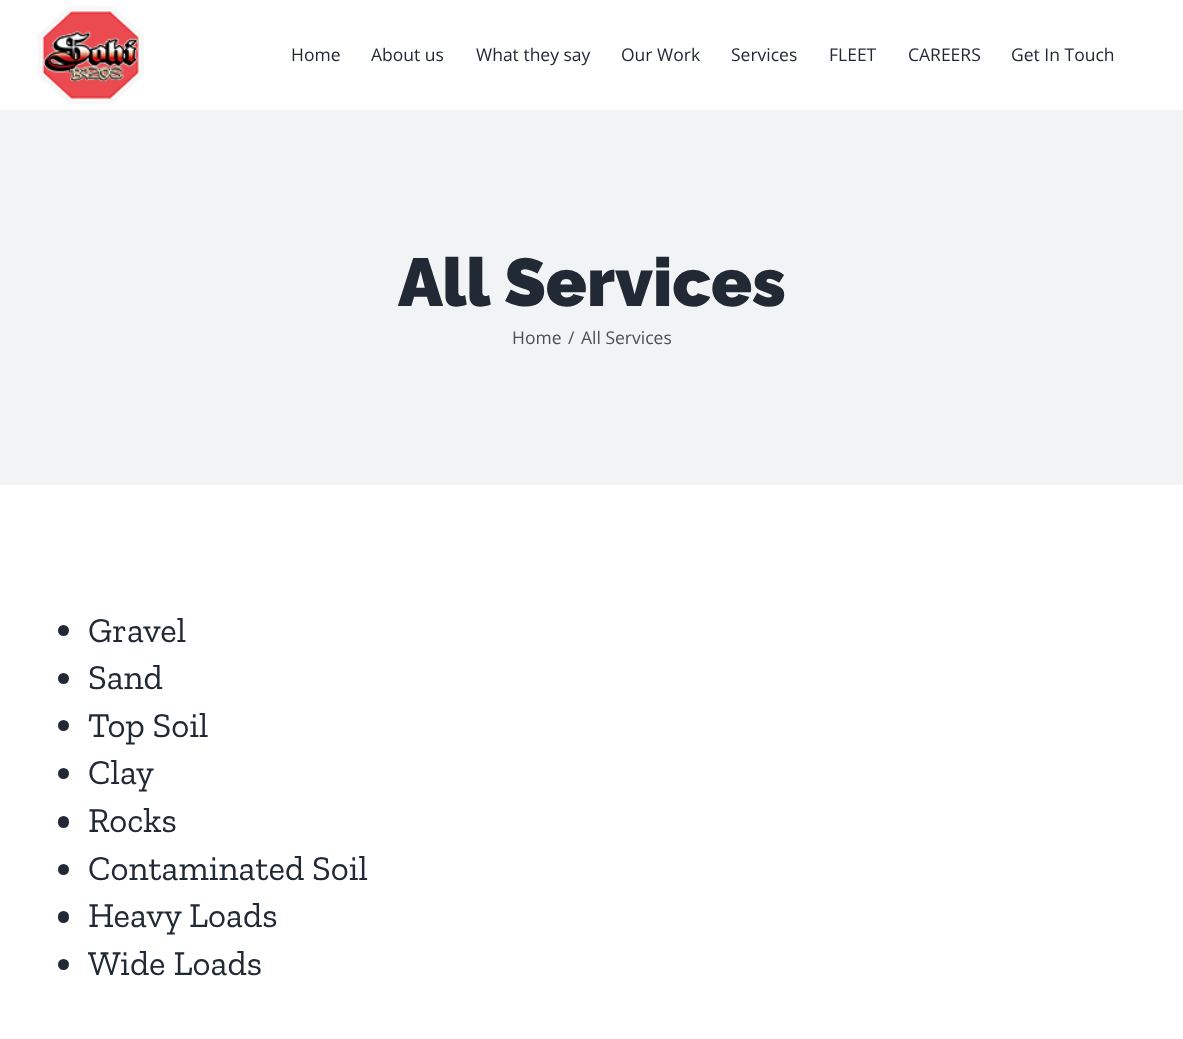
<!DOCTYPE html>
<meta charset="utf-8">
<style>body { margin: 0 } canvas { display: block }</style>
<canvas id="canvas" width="1183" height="1039"></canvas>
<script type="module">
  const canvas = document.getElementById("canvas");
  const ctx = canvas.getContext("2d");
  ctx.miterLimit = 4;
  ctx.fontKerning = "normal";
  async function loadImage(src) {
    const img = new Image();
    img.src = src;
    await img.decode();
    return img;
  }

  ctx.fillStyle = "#ffffff";
  ctx.fillRect(0, 0, 1183, 1039);
  ctx.drawImage(await loadImage("img1.png"), 38, 6, 106, 98);
  ctx.font = "17.5px Open Sans";
  ctx.fillStyle = "#212934";
  ctx.fillText("Home", 291, 61);
  ctx.fillText("About us", 371, 61);
  ctx.fillText("What they say", 476, 61);
  ctx.fillText("Our Work", 621, 61);
  ctx.fillText("Services", 731, 61);
  ctx.fillText("FLEET", 829, 61);
  ctx.fillText("CAREERS", 908, 61);
  ctx.fillText("Get In Touch", 1011, 61);
  ctx.fillStyle = "#f2f3f5";
  ctx.fillRect(0, 110, 1183, 375);
  ctx.font = "900 67.5px Raleway";
  ctx.fillStyle = "#212934";
  ctx.fillText("All Services", 398, 306);
  ctx.font = "17.5px Open Sans";
  ctx.fillStyle = "#4a4e57";
  ctx.fillText("Home", 512, 344);
  ctx.fillText("/", 568, 344);
  ctx.fillText("All Services", 581, 344);
  ctx.fillStyle = "#212934";
  ctx.beginPath();
  ctx.arc(63.5, 630.5, 5.5, 0, Math.PI * 2);
  ctx.fill();
  ctx.font = "35px Zilla Slab";
  ctx.fillText("Gravel", 88, 642);
  ctx.beginPath();
  ctx.arc(63.5, 678.5, 5.5, 0, Math.PI * 2);
  ctx.fill();
  ctx.fillText("Sand", 88, 689);
  ctx.beginPath();
  ctx.arc(63.5, 725.5, 5.5, 0, Math.PI * 2);
  ctx.fill();
  ctx.fillText("Top Soil", 88, 737);
  ctx.beginPath();
  ctx.arc(63.5, 773.5, 5.5, 0, Math.PI * 2);
  ctx.fill();
  ctx.fillText("Clay", 88, 784);
  ctx.beginPath();
  ctx.roundRect(58, 816, 11, 12, 5.5);
  ctx.fill();
  ctx.fillText("Rocks", 88, 832);
  ctx.beginPath();
  ctx.arc(63.5, 869.5, 5.5, 0, Math.PI * 2);
  ctx.fill();
  ctx.fillText("Contaminated Soil", 88, 880);
  ctx.beginPath();
  ctx.roundRect(58, 911, 11, 12, 5.5);
  ctx.fill();
  ctx.fillText("Heavy Loads", 88, 927);
  ctx.beginPath();
  ctx.arc(63.5, 964.5, 5.5, 0, Math.PI * 2);
  ctx.fill();
  ctx.fillText("Wide Loads", 88, 975);
</script>
